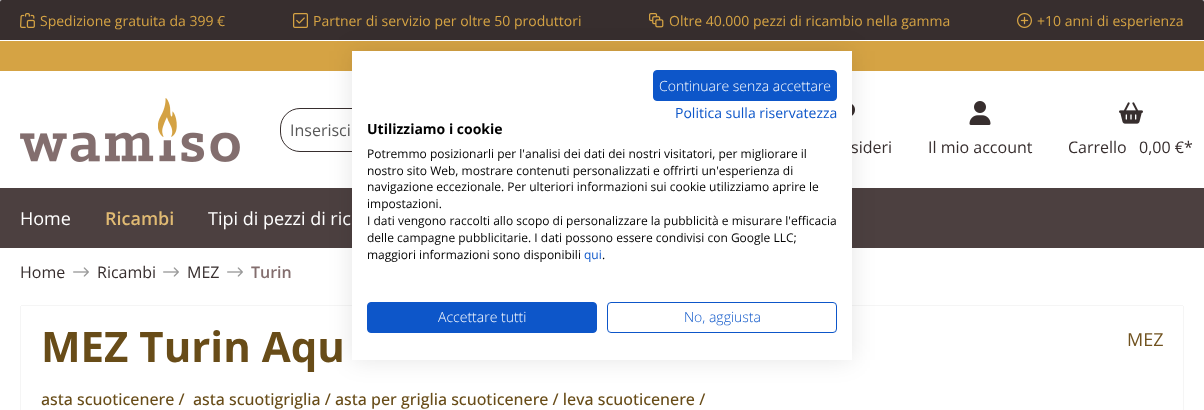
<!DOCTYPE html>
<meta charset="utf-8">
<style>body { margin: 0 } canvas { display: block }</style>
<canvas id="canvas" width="1204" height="410"></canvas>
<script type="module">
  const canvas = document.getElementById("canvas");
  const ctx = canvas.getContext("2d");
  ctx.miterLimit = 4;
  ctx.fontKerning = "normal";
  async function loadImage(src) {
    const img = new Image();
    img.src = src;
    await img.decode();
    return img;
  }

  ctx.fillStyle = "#ffffff";
  ctx.fillRect(0, 0, 1204, 410);
  ctx.drawImage(await loadImage("img1.png"), 0, 0, 1204, 2);
  ctx.fillStyle = "rgba(0, 0, 0, 0.3)";
  ctx.filter = "blur(15px)";
  ctx.beginPath();
  ctx.roundRect(0, 0, 1204, 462, 7);
  ctx.fill();
  ctx.filter = "none";
  ctx.fillStyle = "#ffffff";
  ctx.beginPath();
  ctx.roundRect(0, 0, 1204, 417, 7);
  ctx.fill();
  ctx.fillStyle = "#372e2e";
  ctx.beginPath();
  ctx.roundRect(0, 0, 1204, 40, [2, 2, 0, 0]);
  ctx.fill();
  ctx.drawImage(await loadImage("img2.png"), 20, 13, 15, 15);
  ctx.font = "14px Open Sans";
  ctx.fillStyle = "#d5a344";
  ctx.fillText("Spedizione gratuita da 399 €", 40, 26);
  ctx.drawImage(await loadImage("img3.png"), 293, 13, 15, 15);
  ctx.fillText("Partner di servizio per oltre 50 produttori", 313, 26);
  ctx.drawImage(await loadImage("img4.png"), 649, 13, 15, 15);
  ctx.fillText("Oltre 40.000 pezzi di ricambio nella gamma", 669, 26);
  ctx.drawImage(await loadImage("img5.png"), 1017, 13, 15, 15);
  ctx.fillText("+10 anni di esperienza", 1037, 26);
  ctx.fillRect(0, 41, 1204, 30);
  ctx.drawImage(await loadImage("img6.png"), 20, 98, 220, 64);
  ctx.beginPath();
  ctx.roundRect(280.5, 108.5, 413, 43, [19.5, 0, 0, 19.5]);
  ctx.strokeStyle = "#372e2e";
  ctx.stroke();
  ctx.font = "16px Open Sans";
  ctx.fillStyle = "#595959";
  ctx.fillText("Inserisci", 290, 136);
  ctx.drawImage(await loadImage("img7.png"), 852, 104, 3, 12);
  ctx.fillStyle = "#372e2e";
  ctx.fillText("sideri", 851, 153);
  ctx.drawImage(await loadImage("img8.png"), 969, 101, 22, 24);
  ctx.fillText("Il mio account", 928, 153);
  ctx.drawImage(await loadImage("img9.png"), 1119, 102, 24, 22);
  ctx.fillText("Carrello", 1068, 153);
  ctx.fillText("0,00 €*", 1139, 153);
  ctx.fillStyle = "#4c4040";
  ctx.fillRect(0, 188, 1204, 60);
  ctx.font = "18px Open Sans";
  ctx.fillStyle = "#ffffff";
  ctx.fillText("Home", 20, 225);
  ctx.font = "600 18px Open Sans";
  ctx.fillStyle = "#e0ba73";
  ctx.fillText("Ricambi", 105, 225);
  ctx.font = "18px Open Sans";
  ctx.fillStyle = "#ffffff";
  ctx.fillText("Tipi di pezzi di ric", 208, 225);
  ctx.font = "16px Open Sans";
  ctx.fillStyle = "#372e2e";
  ctx.fillText("Home", 20, 278);
  ctx.drawImage(await loadImage("img10.png"), 73, 267, 16, 10);
  ctx.fillText("Ricambi", 97, 278);
  ctx.drawImage(await loadImage("img10.png"), 163, 267, 16, 10);
  ctx.fillText("MEZ", 187, 278);
  ctx.drawImage(await loadImage("img10.png"), 227, 267, 16, 10);
  ctx.font = "600 16px Open Sans";
  ctx.fillStyle = "#836e6e";
  ctx.fillText("Turin", 251, 278);
  ctx.fillStyle = "#f5f5f5";
  ctx.fillRect(21, 305, 1162, 1);
  ctx.fillRect(1183, 306, 1, 104);
  ctx.fillRect(20, 306, 1, 104);
  ctx.font = "bold 42px Open Sans";
  ctx.fillStyle = "#684c18";
  ctx.fillText("MEZ Turin Aqu", 41, 362);
  ctx.font = "500 16px Open Sans";
  ctx.fillText("asta scuoticenere /", 41, 405);
  ctx.fillText("asta scuotigriglia / asta per griglia scuoticenere / leva scuoticenere /", 193, 405);
  ctx.font = "18px Open Sans";
  ctx.fillStyle = "#715320";
  ctx.fillText("MEZ", 1127, 346);
  ctx.fillStyle = "rgba(0, 0, 0, 0.1)";
  ctx.filter = "blur(12px)";
  ctx.beginPath();
  ctx.rect(352, 51, 500, 309);
  ctx.fill();
  ctx.filter = "none";
  ctx.fillStyle = "#ffffff";
  ctx.fillRect(352, 51, 500, 309);
  ctx.fillStyle = "#0d56c9";
  ctx.beginPath();
  ctx.roundRect(653.5, 70.5, 183, 30, 3.5);
  ctx.fill();
  ctx.strokeStyle = "#0d56c9";
  ctx.stroke();
  ctx.font = "300 14px Open Sans";
  ctx.fillStyle = "#ffffff";
  ctx.fillText("Continuare senza accettare", 659, 91);
  ctx.font = "14px Open Sans";
  ctx.fillStyle = "#0d56c9";
  ctx.fillText("Politica sulla riservatezza", 675, 118);
  ctx.font = "bold 14px Open Sans";
  ctx.fillStyle = "#000000";
  ctx.fillText("Utilizziamo i cookie", 367, 134);
  ctx.font = "12px Open Sans";
  ctx.fillText("Potremmo posizionarli per l'analisi dei dati dei nostri visitatori, per migliorare il", 367, 158);
  ctx.fillText("nostro sito Web, mostrare contenuti personalizzati e offrirti un'esperienza di", 367, 175);
  ctx.fillText("navigazione eccezionale. Per ulteriori informazioni sui cookie utilizziamo aprire le", 367, 191);
  ctx.fillText("impostazioni.", 367, 208);
  ctx.fillText("I dati vengono raccolti allo scopo di personalizzare la pubblicità e misurare l'efficacia", 367, 225);
  ctx.fillText("delle campagne pubblicitarie. I dati possono essere condivisi con Google LLC;", 367, 242);
  ctx.fillText("maggiori informazioni sono disponibili", 367, 259);
  ctx.fillStyle = "#0d56c9";
  ctx.fillText("qui", 584, 259);
  ctx.fillStyle = "#000000";
  ctx.fillText(".", 602, 259);
  ctx.fillStyle = "#0d56c9";
  ctx.beginPath();
  ctx.roundRect(367.5, 302.5, 229, 30, 3.5);
  ctx.fill();
  ctx.stroke();
  ctx.font = "300 14px Open Sans";
  ctx.fillStyle = "#ffffff";
  ctx.fillText("Accettare tutti", 438, 322);
  ctx.beginPath();
  ctx.roundRect(607.5, 302.5, 229, 30, 3.5);
  ctx.stroke();
  ctx.fillStyle = "#0d56c9";
  ctx.fillText("No, aggiusta", 684, 322);
</script>
